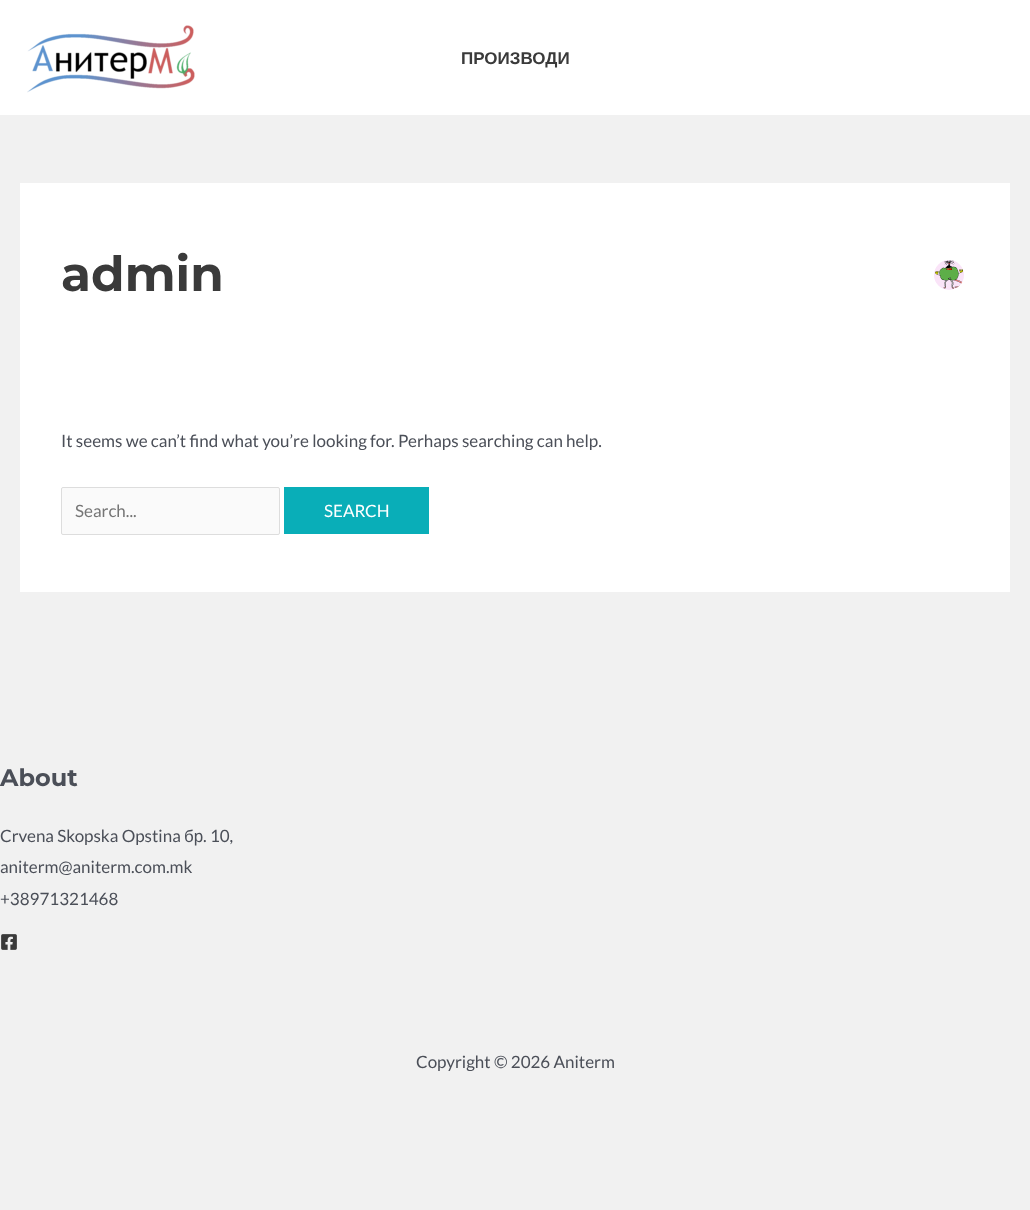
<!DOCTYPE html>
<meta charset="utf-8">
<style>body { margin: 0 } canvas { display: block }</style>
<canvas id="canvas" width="1030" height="1210"></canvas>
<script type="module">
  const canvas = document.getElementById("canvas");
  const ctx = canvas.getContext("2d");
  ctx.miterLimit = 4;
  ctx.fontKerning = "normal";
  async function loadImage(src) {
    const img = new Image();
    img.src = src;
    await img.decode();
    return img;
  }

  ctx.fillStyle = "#f1f1f1";
  ctx.fillRect(0, 0, 1030, 1210);
  ctx.fillStyle = "#ffffff";
  ctx.fillRect(0, 0, 1030, 115);
  ctx.drawImage(await loadImage("img1.png"), 27, 25, 168, 68);
  ctx.font = "bold 17px Liberation Sans";
  ctx.fillStyle = "#3a3a3a";
  ctx.fillText("ПРОИЗВОДИ", 461, 64);
  ctx.fillStyle = "#ffffff";
  ctx.fillRect(20, 183, 990, 409);
  ctx.font = "100 48.5px Montserrat";
  ctx.fillStyle = "#3a3a3a";
  ctx.fillText("admin", 61, 291);
  ctx.drawImage(await loadImage("img2.png"), 934, 260, 30, 30);
  ctx.font = "17px Lato";
  ctx.fillStyle = "#4b4f58";
  ctx.fillText("It seems we can’t find what you’re looking for. Perhaps searching can help.", 61, 447);
  ctx.fillStyle = "#fafafa";
  ctx.beginPath();
  ctx.roundRect(61.5, 487.5, 218, 47, 1.5);
  ctx.fill();
  ctx.strokeStyle = "#dddddd";
  ctx.stroke();
  ctx.fillStyle = "#757575";
  ctx.fillText("Search...", 75, 517);
  ctx.fillStyle = "#09aeb8";
  ctx.fillRect(284, 487, 145, 47);
  ctx.fillStyle = "#ffffff";
  ctx.fillText("SEARCH", 324, 517);
  ctx.font = "100 24px Montserrat";
  ctx.fillStyle = "#4b4f58";
  ctx.fillText("About", 0, 786);
  ctx.font = "17px Lato";
  ctx.fillText("Crvena Skopska Opstina", 0, 842);
  ctx.font = "17px Liberation Sans";
  ctx.fillText("бр", 184, 842);
  ctx.font = "17px Lato";
  ctx.fillText(". 10,", 203, 842);
  ctx.fillText("aniterm@aniterm.com.mk", 0, 873);
  ctx.fillText("+38971321468", 0, 905);
  ctx.drawImage(await loadImage("img3.png"), 1, 934, 16, 16);
  ctx.fillText("Copyright © 2026 Aniterm", 416, 1068);
</script>
